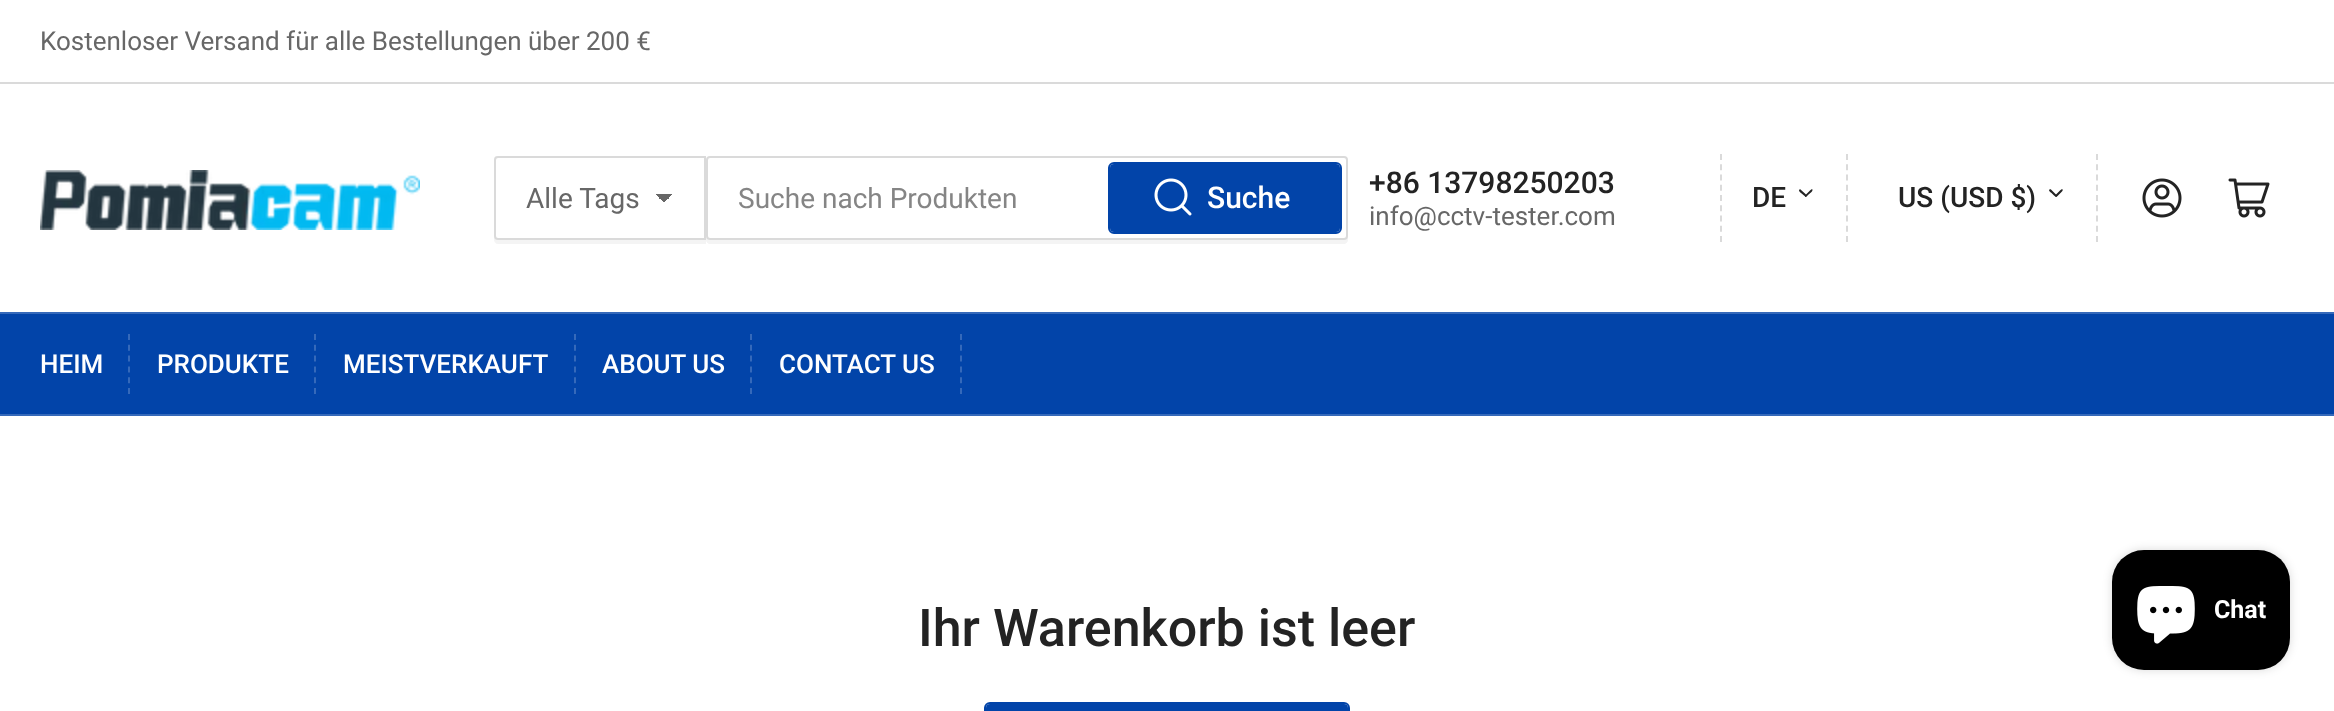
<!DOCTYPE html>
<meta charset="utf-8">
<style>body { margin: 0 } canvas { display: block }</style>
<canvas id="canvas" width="2334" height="711"></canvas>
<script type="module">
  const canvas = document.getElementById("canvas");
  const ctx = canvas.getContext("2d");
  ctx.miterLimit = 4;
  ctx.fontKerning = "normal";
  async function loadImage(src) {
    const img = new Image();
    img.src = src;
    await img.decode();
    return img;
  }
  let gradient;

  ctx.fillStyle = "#ffffff";
  ctx.fillRect(0, 0, 2334, 711);
  ctx.fillStyle = "#dadada";
  ctx.fillRect(0, 82, 2334, 2);
  ctx.font = "26px Roboto";
  ctx.fillStyle = "#676767";
  ctx.fillText("Kostenloser Versand für alle Bestellungen über 200 €", 40, 50);
  ctx.drawImage(await loadImage("img1.png"), 40, 170, 380, 60);
  ctx.beginPath();
  ctx.roundRect(495, 157, 210, 82, 3);
  ctx.strokeStyle = "#dadada";
  ctx.lineWidth = 2;
  ctx.stroke();
  ctx.fillStyle = "rgba(218, 218, 218, 0.3)";
  ctx.beginPath();
  ctx.moveTo(494, 236);
  ctx.lineTo(494, 240);
  ctx.bezierCurveTo(494, 242, 496, 244, 498, 244);
  ctx.lineTo(706, 244);
  ctx.lineTo(706, 240);
  ctx.lineTo(498, 240);
  ctx.bezierCurveTo(496, 240, 494, 238, 494, 236);
  ctx.closePath();
  ctx.fill();
  ctx.fillStyle = "#ffffff";
  ctx.beginPath();
  ctx.roundRect(494, 156, 212, 84, [4, 0, 0, 4]);
  ctx.fill();
  gradient = ctx.createLinearGradient(664, 193, 674, 203);
  gradient.addColorStop(0.5, "#676767");
  gradient.addColorStop(0.5, "#ffffff");
  ctx.fillStyle = gradient;
  ctx.fillRect(664, 194, 9, 8);
  gradient = ctx.createLinearGradient(654, 203, 664, 193);
  gradient.addColorStop(0.5, "#ffffff");
  gradient.addColorStop(0.5, "#676767");
  ctx.fillStyle = gradient;
  ctx.fillRect(656, 194, 8, 8);
  ctx.beginPath();
  ctx.roundRect(495, 157, 210, 82, [3, 0, 0, 3]);
  ctx.stroke();
  ctx.font = "28px Roboto";
  ctx.fillStyle = "#676767";
  ctx.fillText("Alle Tags", 526, 208);
  ctx.fillStyle = "#f4f4f4";
  ctx.beginPath();
  ctx.moveTo(706, 236);
  ctx.lineTo(706, 240);
  ctx.bezierCurveTo(706, 242, 708, 244, 710, 244);
  ctx.lineTo(1344, 244);
  ctx.bezierCurveTo(1346, 244, 1348, 242, 1348, 240);
  ctx.lineTo(1348, 236);
  ctx.bezierCurveTo(1348, 238, 1346, 240, 1344, 240);
  ctx.lineTo(710, 240);
  ctx.bezierCurveTo(708, 240, 706, 238, 706, 236);
  ctx.closePath();
  ctx.fill();
  ctx.fillStyle = "#ffffff";
  ctx.beginPath();
  ctx.roundRect(707, 157, 640, 82, 3);
  ctx.fill();
  ctx.stroke();
  ctx.fillStyle = "#858585";
  ctx.fillText("Suche nach Produkten", 738, 208);
  ctx.beginPath();
  ctx.roundRect(1109, 163, 232, 70, 5);
  ctx.strokeStyle = "#0244a9";
  ctx.stroke();
  ctx.fillStyle = "#0244a9";
  ctx.beginPath();
  ctx.roundRect(1110, 164, 230, 68, 4);
  ctx.fill();
  ctx.drawImage(await loadImage("img2.png"), 1154, 178, 38, 38);
  ctx.font = "500 30px Roboto";
  ctx.fillStyle = "#ffffff";
  ctx.fillText("Suche", 1207, 208);
  ctx.fillStyle = "#232323";
  ctx.fillText("+86 13798250203", 1369, 193);
  ctx.font = "26px Roboto";
  ctx.fillStyle = "#676767";
  ctx.fillText("info@cctv-tester.com", 1369, 225);
  ctx.beginPath();
  ctx.moveTo(1847, 154);
  ctx.lineTo(1847, 242);
  ctx.strokeStyle = "#dadada";
  ctx.setLineDash([6, 4.24]);
  ctx.stroke();
  ctx.beginPath();
  ctx.moveTo(1721, 154);
  ctx.lineTo(1721, 242);
  ctx.stroke();
  ctx.font = "500 28px Roboto";
  ctx.fillStyle = "#232323";
  ctx.fillText("DE", 1752, 207);
  ctx.beginPath();
  ctx.moveTo(1800.5, 189.5);
  ctx.lineTo(1805.5, 194);
  ctx.bezierCurveTo(1807.5, 196.5, 1806.5, 198, 1804, 195.5);
  ctx.lineTo(1801, 193);
  ctx.bezierCurveTo(1800.5, 192.5, 1798, 190.5, 1799.5, 189.5);
  ctx.bezierCurveTo(1800, 189, 1800.5, 189, 1800.5, 189.5);
  ctx.closePath();
  ctx.fill();
  ctx.beginPath();
  ctx.moveTo(1805.5, 195);
  ctx.lineTo(1810, 190.5);
  ctx.bezierCurveTo(1812.5, 188, 1813.5, 189.5, 1811.5, 192);
  ctx.lineTo(1808.5, 194.5);
  ctx.bezierCurveTo(1808, 195, 1806, 198, 1805, 196.5);
  ctx.bezierCurveTo(1805, 196, 1805, 195.5, 1805.5, 195);
  ctx.closePath();
  ctx.fill();
  ctx.beginPath();
  ctx.moveTo(2097, 154);
  ctx.lineTo(2097, 242);
  ctx.stroke();
  ctx.fillText("US (USD $)", 1898, 207);
  ctx.beginPath();
  ctx.moveTo(2051, 189.5);
  ctx.lineTo(2055.5, 194);
  ctx.bezierCurveTo(2058, 196.5, 2056.5, 198, 2054, 195.5);
  ctx.lineTo(2051.5, 193);
  ctx.bezierCurveTo(2051, 192.5, 2048, 190.5, 2049.5, 189.5);
  ctx.bezierCurveTo(2050, 189, 2050.5, 189, 2051, 189.5);
  ctx.closePath();
  ctx.fill();
  ctx.beginPath();
  ctx.moveTo(2055.5, 195);
  ctx.lineTo(2060, 190.5);
  ctx.bezierCurveTo(2062.5, 188, 2064, 189.5, 2061.5, 192);
  ctx.lineTo(2059, 194.5);
  ctx.bezierCurveTo(2058.5, 195, 2056.5, 198, 2055.5, 196.5);
  ctx.bezierCurveTo(2055, 196, 2055, 195.5, 2055.5, 195);
  ctx.closePath();
  ctx.fill();
  ctx.drawImage(await loadImage("img3.png"), 2142, 178, 40, 40);
  ctx.drawImage(await loadImage("img4.png"), 2228, 178, 42, 40);
  ctx.fillStyle = "#0244a9";
  ctx.fillRect(0, 314, 2334, 100);
  ctx.fillStyle = "#3569ba";
  ctx.fillRect(0, 312, 2334, 2);
  ctx.fillRect(0, 414, 2334, 2);
  ctx.font = "500 26px Roboto";
  ctx.fillStyle = "#ffffff";
  ctx.fillText("HEIM", 40, 373);
  ctx.beginPath();
  ctx.moveTo(129, 334);
  ctx.lineTo(129, 394);
  ctx.strokeStyle = "#3569ba";
  ctx.setLineDash([6, 4.8]);
  ctx.stroke();
  ctx.fillText("PRODUKTE", 157, 373);
  ctx.beginPath();
  ctx.moveTo(315, 334);
  ctx.lineTo(315, 394);
  ctx.stroke();
  ctx.fillText("MEISTVERKAUFT", 343, 373);
  ctx.beginPath();
  ctx.moveTo(575, 334);
  ctx.lineTo(575, 394);
  ctx.stroke();
  ctx.fillText("ABOUT US", 602, 373);
  ctx.beginPath();
  ctx.moveTo(751, 334);
  ctx.lineTo(751, 394);
  ctx.stroke();
  ctx.fillText("CONTACT US", 779, 373);
  ctx.beginPath();
  ctx.moveTo(961, 334);
  ctx.lineTo(961, 394);
  ctx.stroke();
  ctx.font = "500 52px Roboto";
  ctx.fillStyle = "#232323";
  ctx.fillText("Ihr Warenkorb ist leer", 918, 646);
  ctx.beginPath();
  ctx.roundRect(985, 703, 364, 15, 5);
  ctx.strokeStyle = "#0244a9";
  ctx.setLineDash([]);
  ctx.stroke();
  ctx.fillStyle = "#0244a9";
  ctx.beginPath();
  ctx.roundRect(986, 704, 362, 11, 4);
  ctx.fill();
  ctx.fillStyle = "rgba(0, 0, 0, 0.15)";
  ctx.filter = "blur(5px)";
  ctx.beginPath();
  ctx.roundRect(2112, 550, 178, 120, 32);
  ctx.fill();
  ctx.filter = "none";
  ctx.fillStyle = "#000000";
  ctx.beginPath();
  ctx.roundRect(2112, 550, 178, 120, 32);
  ctx.fill();
  ctx.drawImage(await loadImage("img5.png"), 2137, 586, 58, 58);
  ctx.font = "bold 25px Roboto";
  ctx.fillStyle = "#ffffff";
  ctx.fillText("Chat", 2214, 618);
</script>
